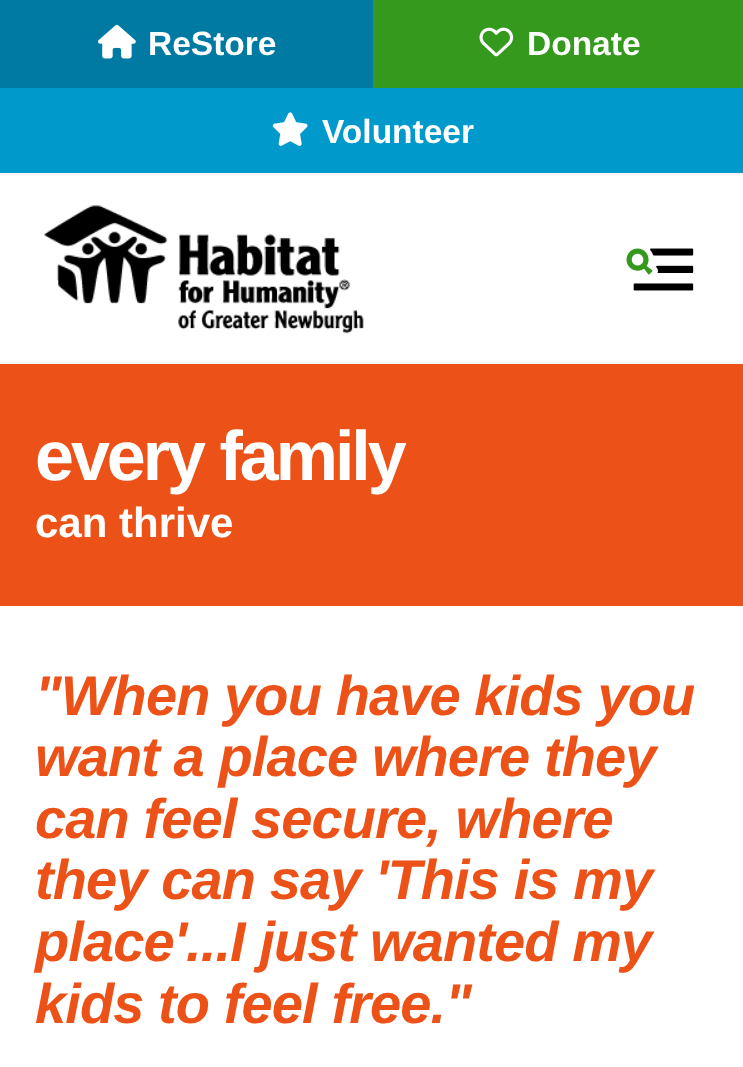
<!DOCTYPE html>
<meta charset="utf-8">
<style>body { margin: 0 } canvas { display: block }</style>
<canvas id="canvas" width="743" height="1067"></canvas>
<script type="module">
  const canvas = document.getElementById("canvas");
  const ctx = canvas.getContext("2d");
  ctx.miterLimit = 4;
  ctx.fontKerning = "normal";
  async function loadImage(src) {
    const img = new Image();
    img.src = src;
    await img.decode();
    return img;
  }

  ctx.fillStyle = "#ffffff";
  ctx.fillRect(0, 0, 743, 1067);
  ctx.fillStyle = "#f6f6f6";
  ctx.fillRect(0, 362, 743, 2);
  ctx.fillStyle = "#007aa3";
  ctx.fillRect(0, 0, 373, 88);
  ctx.drawImage(await loadImage("img1.png"), 98, 24, 38, 35);
  ctx.font = "bold 33.5px Liberation Sans";
  ctx.fillStyle = "#ffffff";
  ctx.fillText("ReStore", 148, 55);
  ctx.fillStyle = "#34991d";
  ctx.fillRect(373, 0, 370, 88);
  ctx.drawImage(await loadImage("img2.png"), 479, 27, 35, 30);
  ctx.fillStyle = "#ffffff";
  ctx.fillText("Donate", 527, 55);
  ctx.fillStyle = "#0099cc";
  ctx.fillRect(0, 88, 743, 85);
  ctx.drawImage(await loadImage("img3.png"), 272, 112, 36, 34);
  ctx.fillStyle = "#ffffff";
  ctx.fillText("Volunteer", 322, 143);
  ctx.fillStyle = "#f6f6f6";
  ctx.fillRect(0, 173, 743, 2);
  ctx.drawImage(await loadImage("img4.png"), 44, 205, 320, 129);
  ctx.drawImage(await loadImage("img5.png"), 626, 248, 68, 43);
  ctx.fillStyle = "#ec5217";
  ctx.fillRect(0, 364, 743, 242);
  ctx.letterSpacing = "-3px";
  ctx.font = "bold 70px Liberation Sans";
  ctx.fillStyle = "#ffffff";
  ctx.fillText("every family", 35, 480);
  ctx.letterSpacing = "0px";
  ctx.font = "bold 42px Liberation Sans";
  ctx.fillText("can thrive", 35, 537);
  ctx.letterSpacing = "-0.9px";
  ctx.font = "italic bold 56px Liberation Sans";
  ctx.fillStyle = "#ec5217";
  ctx.fillText("\"When you have kids you", 35, 715);
  ctx.fillText("want a place where they", 35, 776);
  ctx.fillText("can feel secure, where", 35, 838);
  ctx.fillText("they can say 'This is my", 35, 899);
  ctx.fillText("place'...I just wanted my", 35, 961);
  ctx.fillText("kids to feel free.\"", 35, 1023);
</script>
